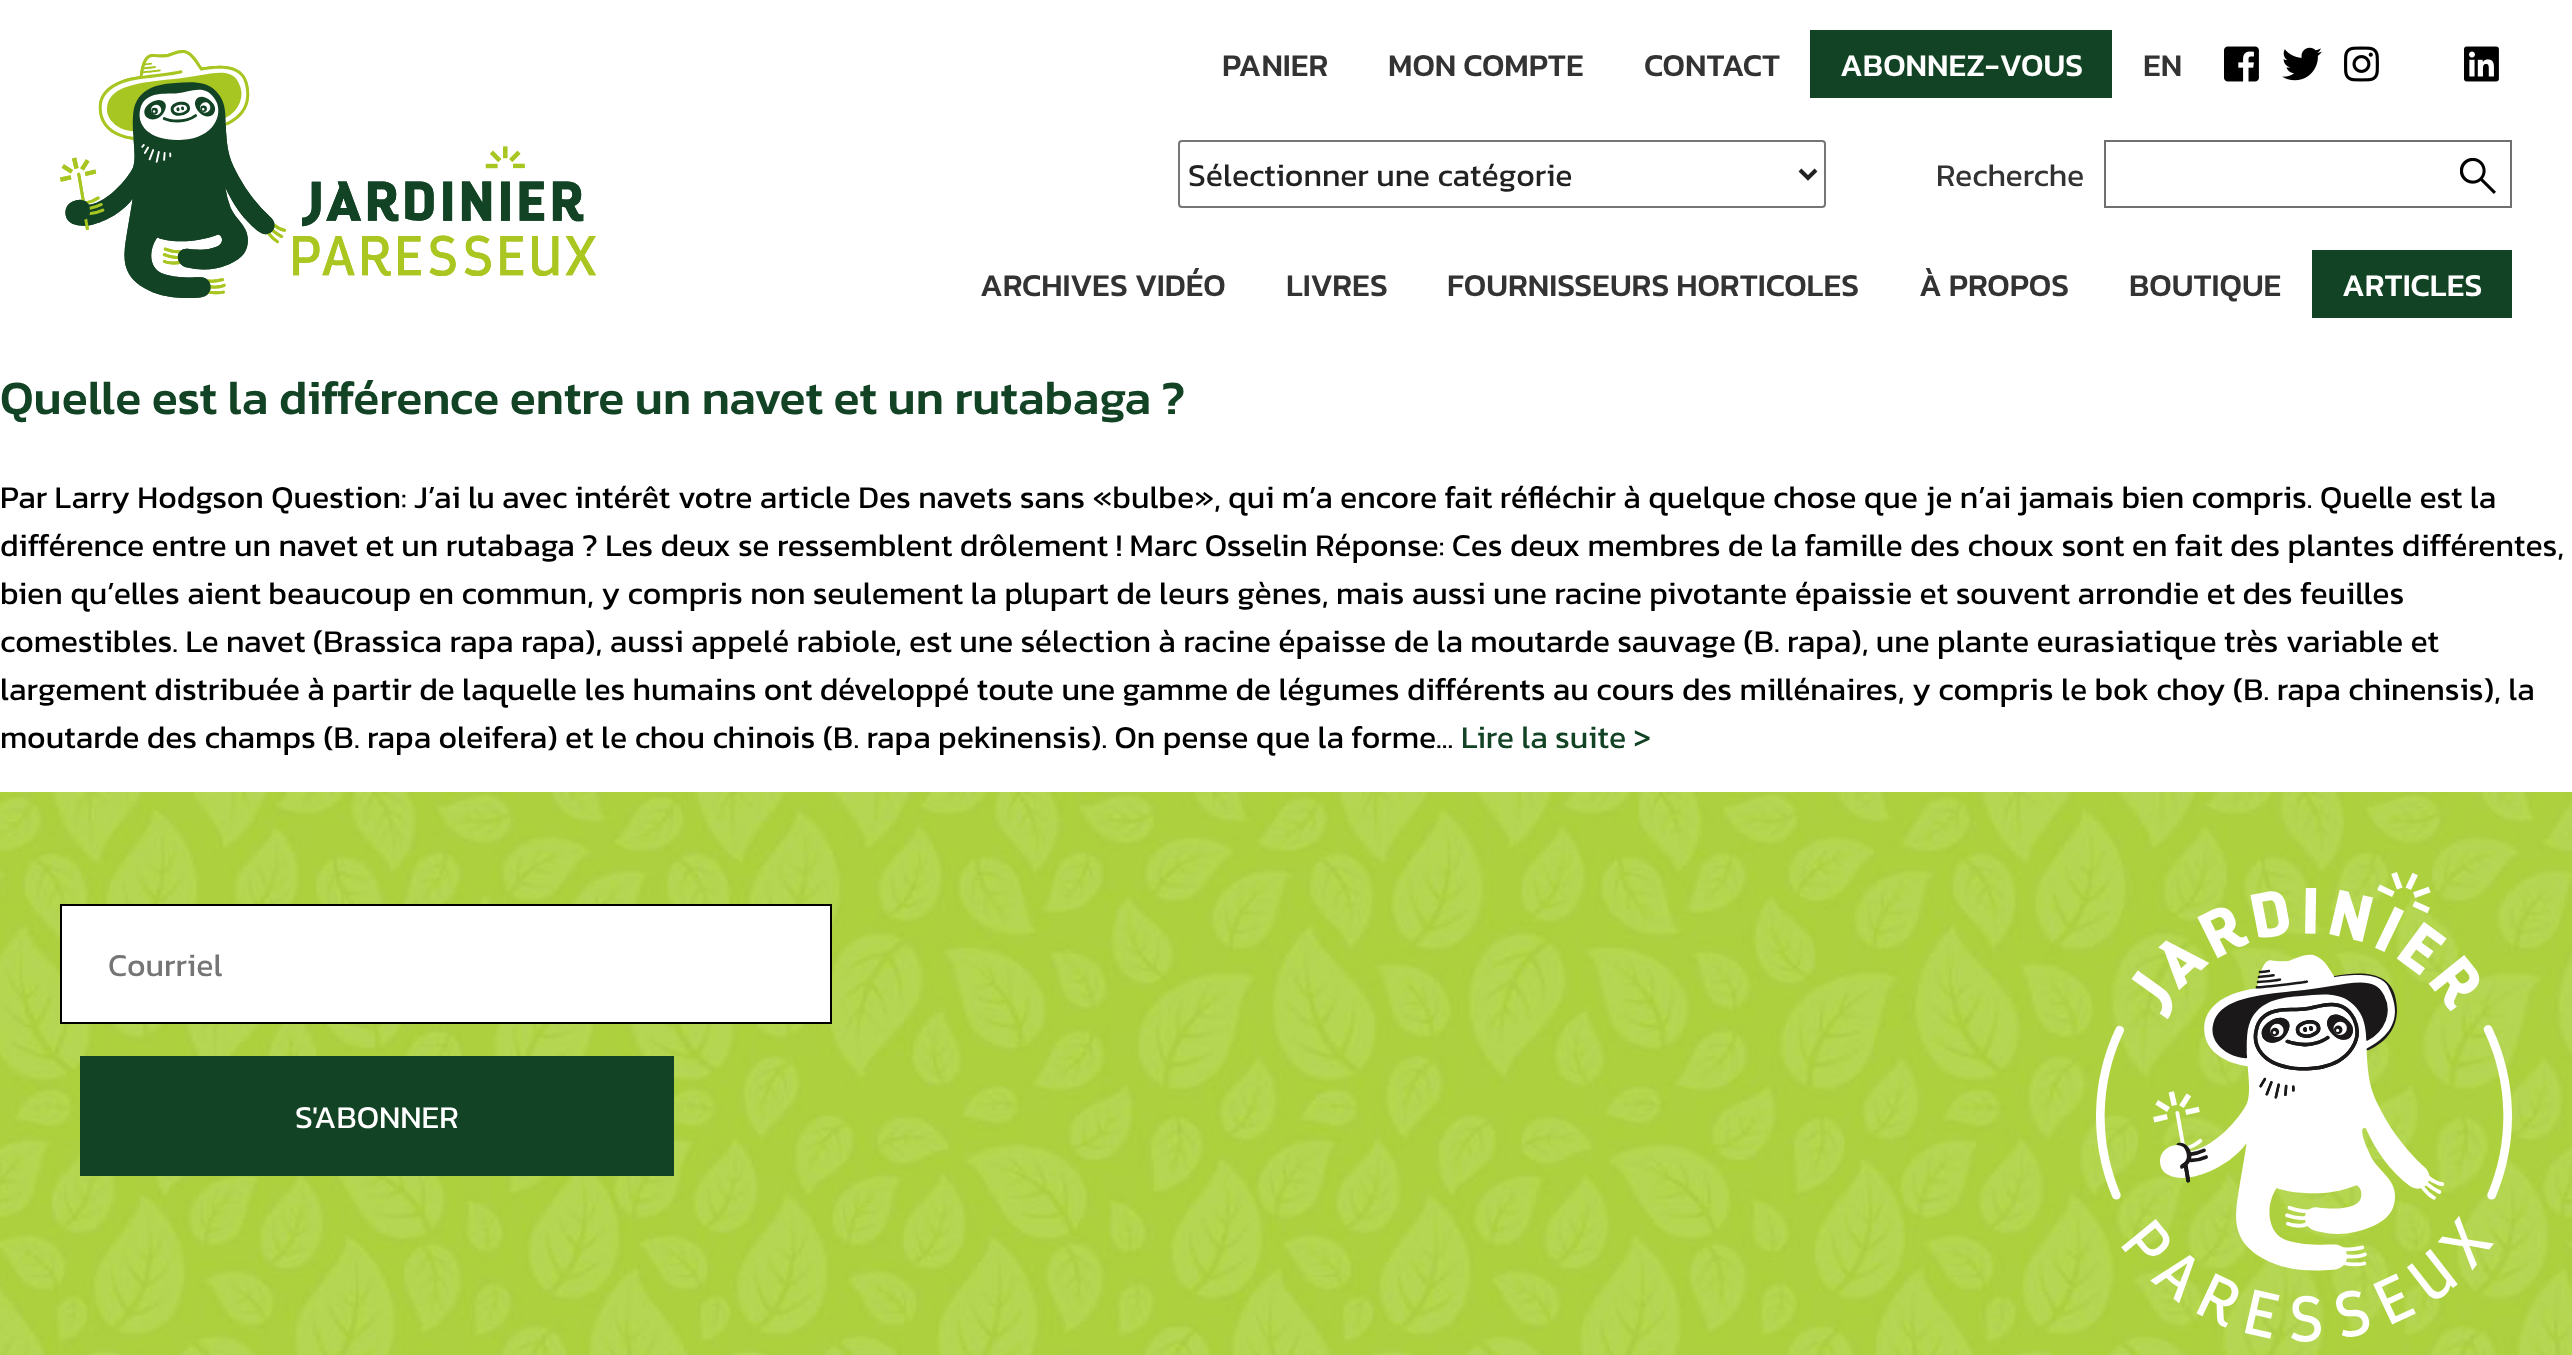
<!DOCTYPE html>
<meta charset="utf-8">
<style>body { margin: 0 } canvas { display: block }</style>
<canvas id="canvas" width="2572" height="1355"></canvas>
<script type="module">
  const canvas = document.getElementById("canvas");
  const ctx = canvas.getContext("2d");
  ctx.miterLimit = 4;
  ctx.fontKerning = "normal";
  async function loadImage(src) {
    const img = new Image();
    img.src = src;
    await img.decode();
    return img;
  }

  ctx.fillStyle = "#ffffff";
  ctx.fillRect(0, 0, 2572, 1355);
  ctx.drawImage(await loadImage("img1.png"), 60, 50, 536, 248);
  ctx.font = "500 32px Kanit";
  ctx.fillStyle = "#333333";
  ctx.fillText("PANIER", 1222, 76);
  ctx.fillText("MON COMPTE", 1388, 76);
  ctx.fillText("CONTACT", 1644, 76);
  ctx.fillStyle = "#134325";
  ctx.fillRect(1810, 30, 302, 68);
  ctx.fillStyle = "#ffffff";
  ctx.fillText("ABONNEZ-VOUS", 1840, 76);
  ctx.fillStyle = "#333333";
  ctx.fillText("EN", 2143, 76);
  ctx.drawImage(await loadImage("img2.png"), 2224, 46, 35, 36);
  ctx.drawImage(await loadImage("img3.png"), 2282, 47, 40, 34);
  ctx.drawImage(await loadImage("img4.png"), 2344, 46, 35, 36);
  ctx.drawImage(await loadImage("img5.png"), 2464, 46, 35, 36);
  ctx.beginPath();
  ctx.roundRect(1179, 141, 646, 66, 3);
  ctx.strokeStyle = "#767676";
  ctx.lineWidth = 2;
  ctx.stroke();
  ctx.beginPath();
  ctx.moveTo(1800, 170);
  ctx.lineTo(1808, 178);
  ctx.lineTo(1816, 170);
  ctx.strokeStyle = "#222222";
  ctx.lineWidth = 4;
  ctx.stroke();
  ctx.font = "32px Kanit";
  ctx.fillStyle = "#222222";
  ctx.fillText("Sélectionner une catégorie", 1188, 186);
  ctx.fillStyle = "#333333";
  ctx.fillText("Recherche", 1936, 186);
  ctx.strokeStyle = "#707070";
  ctx.lineWidth = 2;
  ctx.strokeRect(2105, 141, 406, 66);
  ctx.drawImage(await loadImage("img6.png"), 2460, 158, 36, 36);
  ctx.font = "500 32px Kanit";
  ctx.fillText("ARCHIVES VIDÉO", 980, 296);
  ctx.fillText("LIVRES", 1286, 296);
  ctx.fillText("FOURNISSEURS HORTICOLES", 1447, 296);
  ctx.fillText("À PROPOS", 1919, 296);
  ctx.fillText("BOUTIQUE", 2129, 296);
  ctx.fillStyle = "#134325";
  ctx.fillRect(2312, 250, 200, 68);
  ctx.fillStyle = "#ffffff";
  ctx.fillText("ARTICLES", 2342, 296);
  ctx.font = "500 48px Kanit";
  ctx.fillStyle = "#134325";
  ctx.fillText("Quelle est la différence entre un navet et un rutabaga ?", 0, 414);
  ctx.font = "32px Kanit";
  ctx.fillStyle = "#000000";
  ctx.fillText("Par Larry Hodgson Question: J’ai lu avec intérêt votre article Des navets sans «bulbe», qui m’a encore fait réfléchir à quelque chose que je n’ai jamais bien compris. Quelle est la", 0, 508);
  ctx.fillText("différence entre un navet et un rutabaga ? Les deux se ressemblent drôlement ! Marc Osselin Réponse: Ces deux membres de la famille des choux sont en fait des plantes différentes,", 0, 556);
  ctx.fillText("bien qu’elles aient beaucoup en commun, y compris non seulement la plupart de leurs gènes, mais aussi une racine pivotante épaissie et souvent arrondie et des feuilles", 0, 604);
  ctx.fillText("comestibles. Le navet (Brassica rapa rapa), aussi appelé rabiole, est une sélection à racine épaisse de la moutarde sauvage (B. rapa), une plante eurasiatique très variable et", 0, 652);
  ctx.fillText("largement distribuée à partir de laquelle les humains ont développé toute une gamme de légumes différents au cours des millénaires, y compris le bok choy (B. rapa chinensis), la", 0, 700);
  ctx.fillText("moutarde des champs (B. rapa oleifera) et le chou chinois (B. rapa pekinensis). On pense que la forme...", 0, 748);
  ctx.fillStyle = "#134325";
  ctx.fillText("Lire la suite >", 1461, 748);
  ctx.drawImage(await loadImage("img7.png"), 0, 792, 2572, 563);
  ctx.fillStyle = "#ffffff";
  ctx.beginPath();
  ctx.rect(61, 905, 770, 118);
  ctx.fill();
  ctx.strokeStyle = "#000000";
  ctx.stroke();
  ctx.fillStyle = "#757575";
  ctx.fillText("Courriel", 108, 976);
  ctx.fillStyle = "#134325";
  ctx.fillRect(80, 1056, 594, 120);
  ctx.fillStyle = "#ffffff";
  ctx.fillText("S'ABONNER", 295, 1128);
  ctx.drawImage(await loadImage("img8.png"), 2096, 872, 416, 470);
</script>
